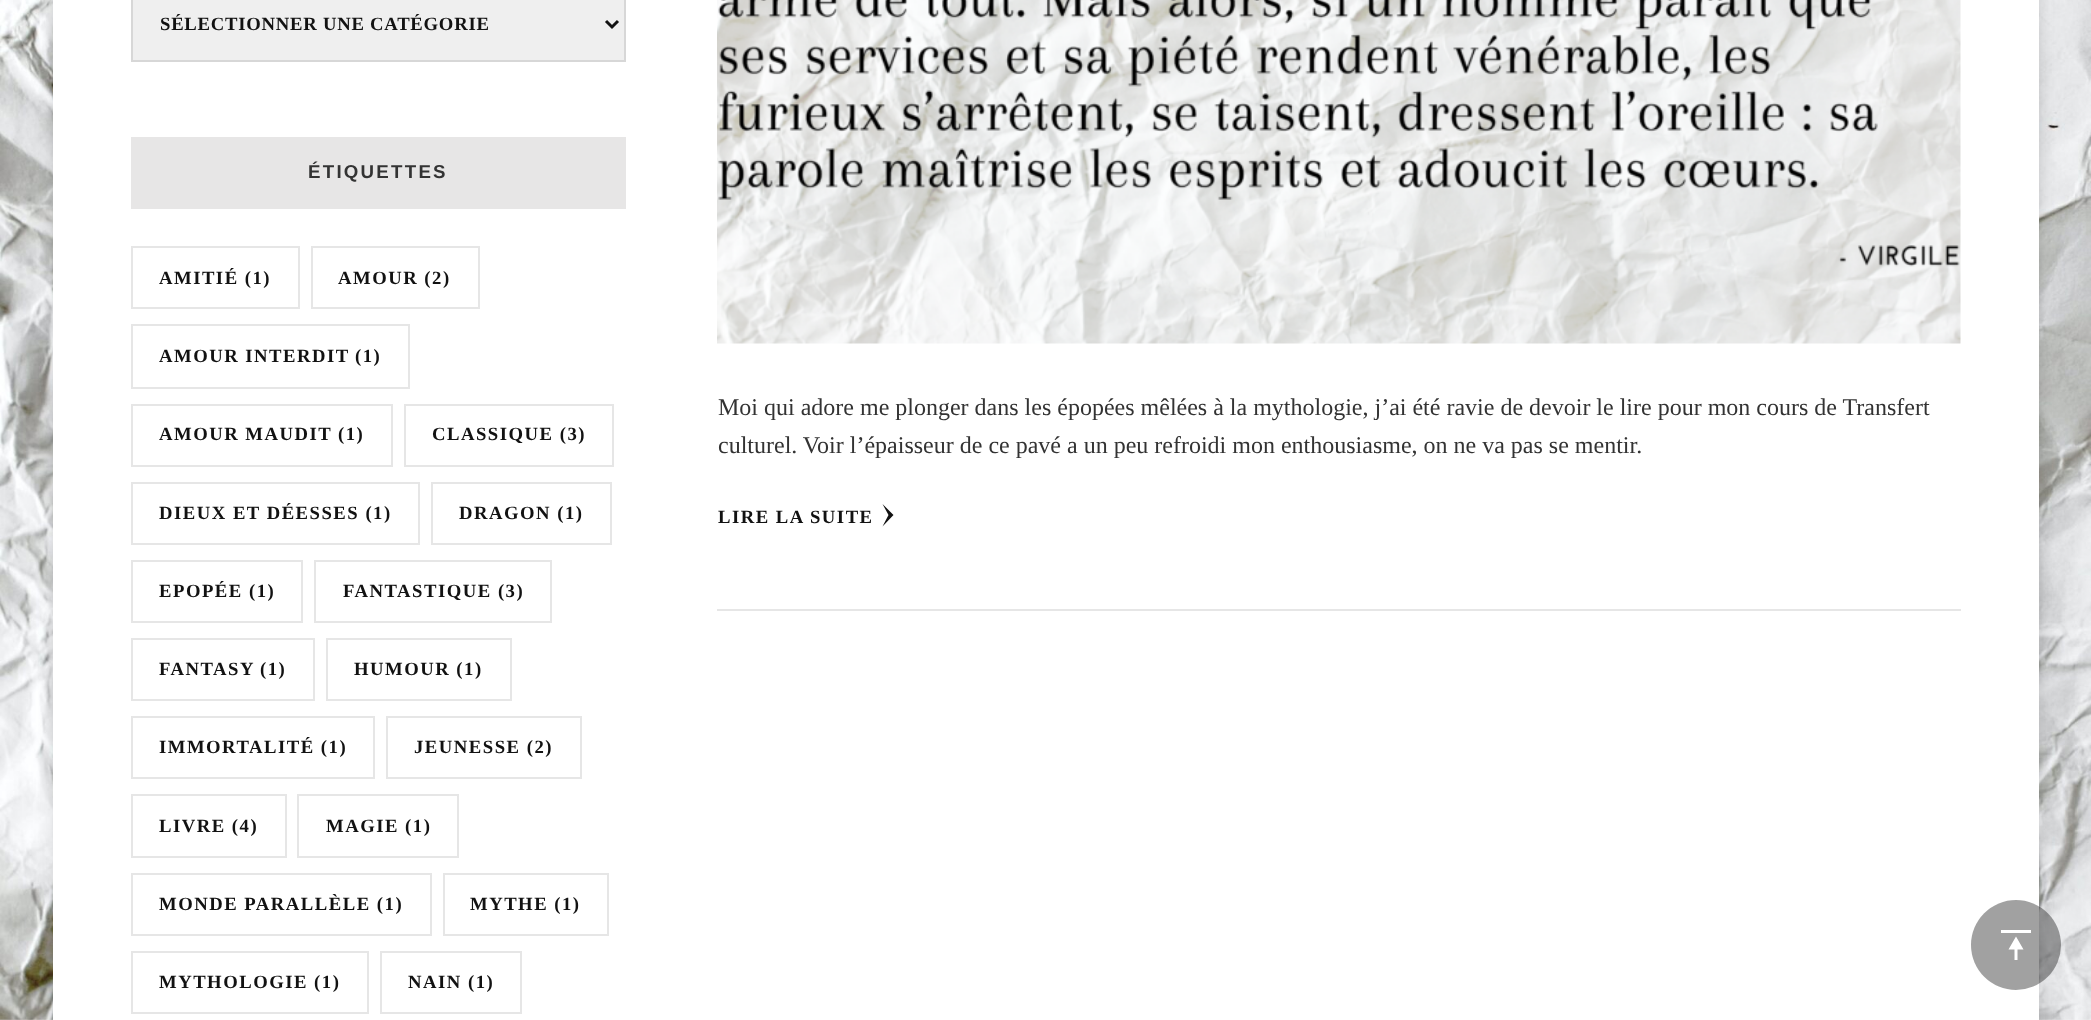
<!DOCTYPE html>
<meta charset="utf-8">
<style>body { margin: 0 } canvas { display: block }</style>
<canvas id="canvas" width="2091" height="1020"></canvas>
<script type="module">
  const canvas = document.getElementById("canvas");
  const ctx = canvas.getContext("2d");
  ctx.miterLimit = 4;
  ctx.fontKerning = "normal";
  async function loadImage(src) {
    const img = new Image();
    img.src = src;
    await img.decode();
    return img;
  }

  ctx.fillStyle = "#ffffff";
  ctx.fillRect(0, 0, 2091, 1020);
  ctx.drawImage(await loadImage("img1.png"), 0, 0, 2091, 1020);
  ctx.fillStyle = "rgba(0, 0, 0, 0.16)";
  ctx.filter = "blur(7.5px)";
  ctx.beginPath();
  ctx.rect(53, -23, 1986, 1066);
  ctx.fill();
  ctx.filter = "none";
  ctx.fillStyle = "#ffffff";
  ctx.fillRect(53, 0, 1986, 1020);
  ctx.fillStyle = "#efefef";
  ctx.beginPath();
  ctx.rect(132, -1, 493, 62);
  ctx.fill();
  ctx.strokeStyle = "#d7d7d7";
  ctx.lineWidth = 2;
  ctx.stroke();
  ctx.beginPath();
  ctx.moveTo(606, 21);
  ctx.lineTo(612, 27);
  ctx.lineTo(618, 21);
  ctx.strokeStyle = "#121212";
  ctx.lineWidth = 3;
  ctx.stroke();
  ctx.letterSpacing = "0.75px";
  ctx.font = "bold 18.7px Liberation Serif";
  ctx.fillStyle = "#121212";
  ctx.fillText("SÉLECTIONNER UNE CATÉGORIE", 160, 30);
  ctx.fillStyle = "#e7e6e6";
  ctx.fillRect(131, 137, 495, 72);
  ctx.letterSpacing = "2.25px";
  ctx.font = "bold 18.7px Liberation Sans";
  ctx.fillStyle = "#333333";
  ctx.fillText("ÉTIQUETTES", 308, 178);
  ctx.strokeStyle = "#e6e6e6";
  ctx.lineWidth = 2;
  ctx.strokeRect(132, 247, 167, 61);
  ctx.letterSpacing = "1.5px";
  ctx.font = "bold 18.7px Liberation Serif";
  ctx.fillStyle = "#121212";
  ctx.fillText("AMITIÉ (1)", 159, 284);
  ctx.strokeRect(312, 247, 167, 61);
  ctx.fillText("AMOUR (2)", 338, 284);
  ctx.strokeRect(132, 325, 277, 63);
  ctx.fillText("AMOUR INTERDIT", 159, 362);
  ctx.fillText("(1)", 355, 362);
  ctx.strokeRect(132, 405, 260, 61);
  ctx.fillText("AMOUR MAUDIT", 159, 440);
  ctx.fillText("(1)", 338, 440);
  ctx.strokeRect(405, 405, 208, 61);
  ctx.fillText("CLASSIQUE (3)", 432, 440);
  ctx.strokeRect(132, 483, 287, 61);
  ctx.fillText("DIEUX ET DÉESSES (1)", 159, 519);
  ctx.strokeRect(432, 483, 179, 61);
  ctx.fillText("DRAGON (1)", 459, 519);
  ctx.strokeRect(132, 561, 170, 61);
  ctx.fillText("EPOPÉE (1)", 159, 597);
  ctx.strokeRect(315, 561, 236, 61);
  ctx.fillText("FANTASTIQUE (3)", 343, 597);
  ctx.strokeRect(132, 639, 182, 61);
  ctx.fillText("FANTASY", 159, 675);
  ctx.fillText("(1)", 260, 675);
  ctx.strokeRect(327, 639, 184, 61);
  ctx.fillText("HUMOUR (1)", 354, 675);
  ctx.strokeRect(132, 717, 242, 61);
  ctx.fillText("IMMORTALITÉ (1)", 159, 753);
  ctx.strokeRect(387, 717, 194, 61);
  ctx.fillText("JEUNESSE (2)", 414, 753);
  ctx.strokeRect(132, 795, 154, 62);
  ctx.fillText("LIVRE (4)", 159, 832);
  ctx.strokeRect(298, 795, 160, 62);
  ctx.fillText("MAGIE (1)", 326, 832);
  ctx.strokeRect(132, 874, 299, 61);
  ctx.fillText("MONDE PARALLÈLE (1)", 159, 910);
  ctx.strokeRect(444, 874, 164, 61);
  ctx.fillText("MYTHE (1)", 470, 910);
  ctx.strokeRect(132, 952, 236, 61);
  ctx.fillText("MYTHOLOGIE (1)", 159, 988);
  ctx.strokeRect(381, 952, 140, 61);
  ctx.fillText("NAIN (1)", 408, 988);
  ctx.fillStyle = "#e6e6e6";
  ctx.fillRect(717, 609, 1244, 2);
  ctx.drawImage(await loadImage("img2.png"), 717, 0, 1244, 344);
  ctx.letterSpacing = "0px";
  ctx.font = "24px Liberation Serif";
  ctx.fillStyle = "#333333";
  ctx.fillText("Moi qui adore me plonger dans les épopées mêlées à la mythologie, j’ai été ravie de devoir le lire pour mon cours de Transfert", 718, 415);
  ctx.fillText("culturel. Voir l’épaisseur de ce pavé a un peu refroidi mon enthousiasme, on ne va pas se mentir.", 718, 453);
  ctx.letterSpacing = "1.5px";
  ctx.font = "bold 18.7px Liberation Serif";
  ctx.fillStyle = "#121212";
  ctx.fillText("LIRE LA SUITE", 718, 523);
  ctx.beginPath();
  ctx.moveTo(893.5, 515);
  ctx.lineTo(882.5, 526.5);
  ctx.lineTo(888.5, 515);
  ctx.lineTo(882.5, 504);
  ctx.closePath();
  ctx.fill();
  ctx.fillStyle = "rgba(0, 0, 0, 0.37)";
  ctx.beginPath();
  ctx.arc(2016, 945, 45, 0, Math.PI * 2);
  ctx.fill();
  ctx.fillStyle = "#ffffff";
  ctx.fillRect(2001, 930, 30, 3);
  ctx.beginPath();
  ctx.moveTo(2023.5, 949.5);
  ctx.lineTo(2016, 936.5);
  ctx.lineTo(2008.5, 949.5);
  ctx.lineTo(2014.5, 949.5);
  ctx.lineTo(2014.5, 960);
  ctx.lineTo(2017.5, 960);
  ctx.lineTo(2017.5, 949.5);
  ctx.closePath();
  ctx.fill();
</script>
